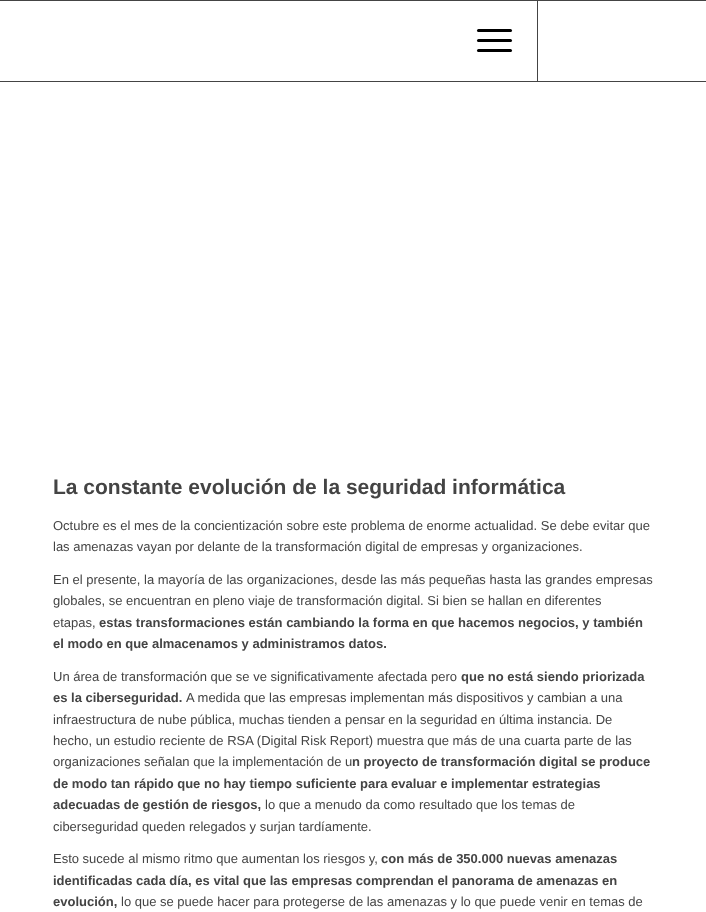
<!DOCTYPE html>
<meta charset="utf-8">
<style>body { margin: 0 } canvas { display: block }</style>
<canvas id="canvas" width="706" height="912"></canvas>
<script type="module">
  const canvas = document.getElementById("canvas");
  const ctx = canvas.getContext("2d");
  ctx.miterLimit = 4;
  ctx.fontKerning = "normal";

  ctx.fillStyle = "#ffffff";
  ctx.fillRect(0, 0, 706, 912);
  ctx.fillStyle = "#444444";
  ctx.fillRect(0, 0, 706, 1);
  ctx.fillRect(0, 81, 706, 1);
  ctx.fillRect(537, 1, 1, 80);
  ctx.fillStyle = "#000000";
  ctx.beginPath();
  ctx.roundRect(477, 39, 35, 3, 1.5);
  ctx.fill();
  ctx.beginPath();
  ctx.roundRect(477, 29, 35, 3, 1.5);
  ctx.fill();
  ctx.beginPath();
  ctx.roundRect(477, 49, 35, 3, 1.5);
  ctx.fill();
  ctx.font = "bold 21px Liberation Sans";
  ctx.fillStyle = "#444444";
  ctx.fillText("La constante evolución de la seguridad informática", 53, 494);
  ctx.font = "13px Liberation Sans";
  ctx.fillText("Octubre es el mes de la concientización sobre este problema de enorme actualidad. Se debe evitar que", 53, 530);
  ctx.fillText("las amenazas vayan por delante de la transformación digital de empresas y organizaciones.", 53, 551);
  ctx.fillText("En el presente, la mayoría de las organizaciones, desde las más pequeñas hasta las grandes empresas", 53, 584);
  ctx.fillText("globales, se encuentran en pleno viaje de transformación digital. Si bien se hallan en diferentes", 53, 605);
  ctx.fillText("etapas,", 53, 627);
  ctx.font = "bold 13px Liberation Sans";
  ctx.fillText("estas transformaciones están cambiando la forma en que hacemos negocios, y también", 99, 627);
  ctx.fillText("el modo en que almacenamos y administramos datos.", 53, 648);
  ctx.font = "13px Liberation Sans";
  ctx.fillText("Un área de transformación que se ve significativamente afectada pero", 53, 681);
  ctx.font = "bold 13px Liberation Sans";
  ctx.fillText("que no está siendo priorizada", 461, 681);
  ctx.fillText("es la ciberseguridad.", 53, 702);
  ctx.font = "13px Liberation Sans";
  ctx.fillText("A medida que las empresas implementan más dispositivos y cambian a una", 186, 702);
  ctx.fillText("infraestructura de nube pública, muchas tienden a pensar en la seguridad en última instancia. De", 53, 724);
  ctx.fillText("hecho, un estudio reciente de RSA (Digital Risk Report) muestra que más de una cuarta parte de las", 53, 745);
  ctx.fillText("organizaciones señalan que la implementación de u", 53, 766);
  ctx.font = "bold 13px Liberation Sans";
  ctx.fillText("n proyecto de transformación digital se produce", 352, 766);
  ctx.fillText("de modo tan rápido que no hay tiempo suficiente para evaluar e implementar estrategias", 53, 788);
  ctx.fillText("adecuadas de gestión de riesgos,", 53, 809);
  ctx.font = "13px Liberation Sans";
  ctx.fillText("lo que a menudo da como resultado que los temas de", 265, 809);
  ctx.fillText("ciberseguridad queden relegados y surjan tardíamente.", 53, 831);
  ctx.fillText("Esto sucede al mismo ritmo que aumentan los riesgos y,", 53, 863);
  ctx.font = "bold 13px Liberation Sans";
  ctx.fillText("con más de 350.000 nuevas amenazas", 381, 863);
  ctx.fillText("identificadas cada día, es vital que las empresas comprendan el panorama de amenazas en", 53, 885);
  ctx.fillText("evolución,", 53, 906);
  ctx.font = "13px Liberation Sans";
  ctx.fillText("lo que se puede hacer para protegerse de las amenazas y lo que puede venir en temas de", 121, 906);
</script>
